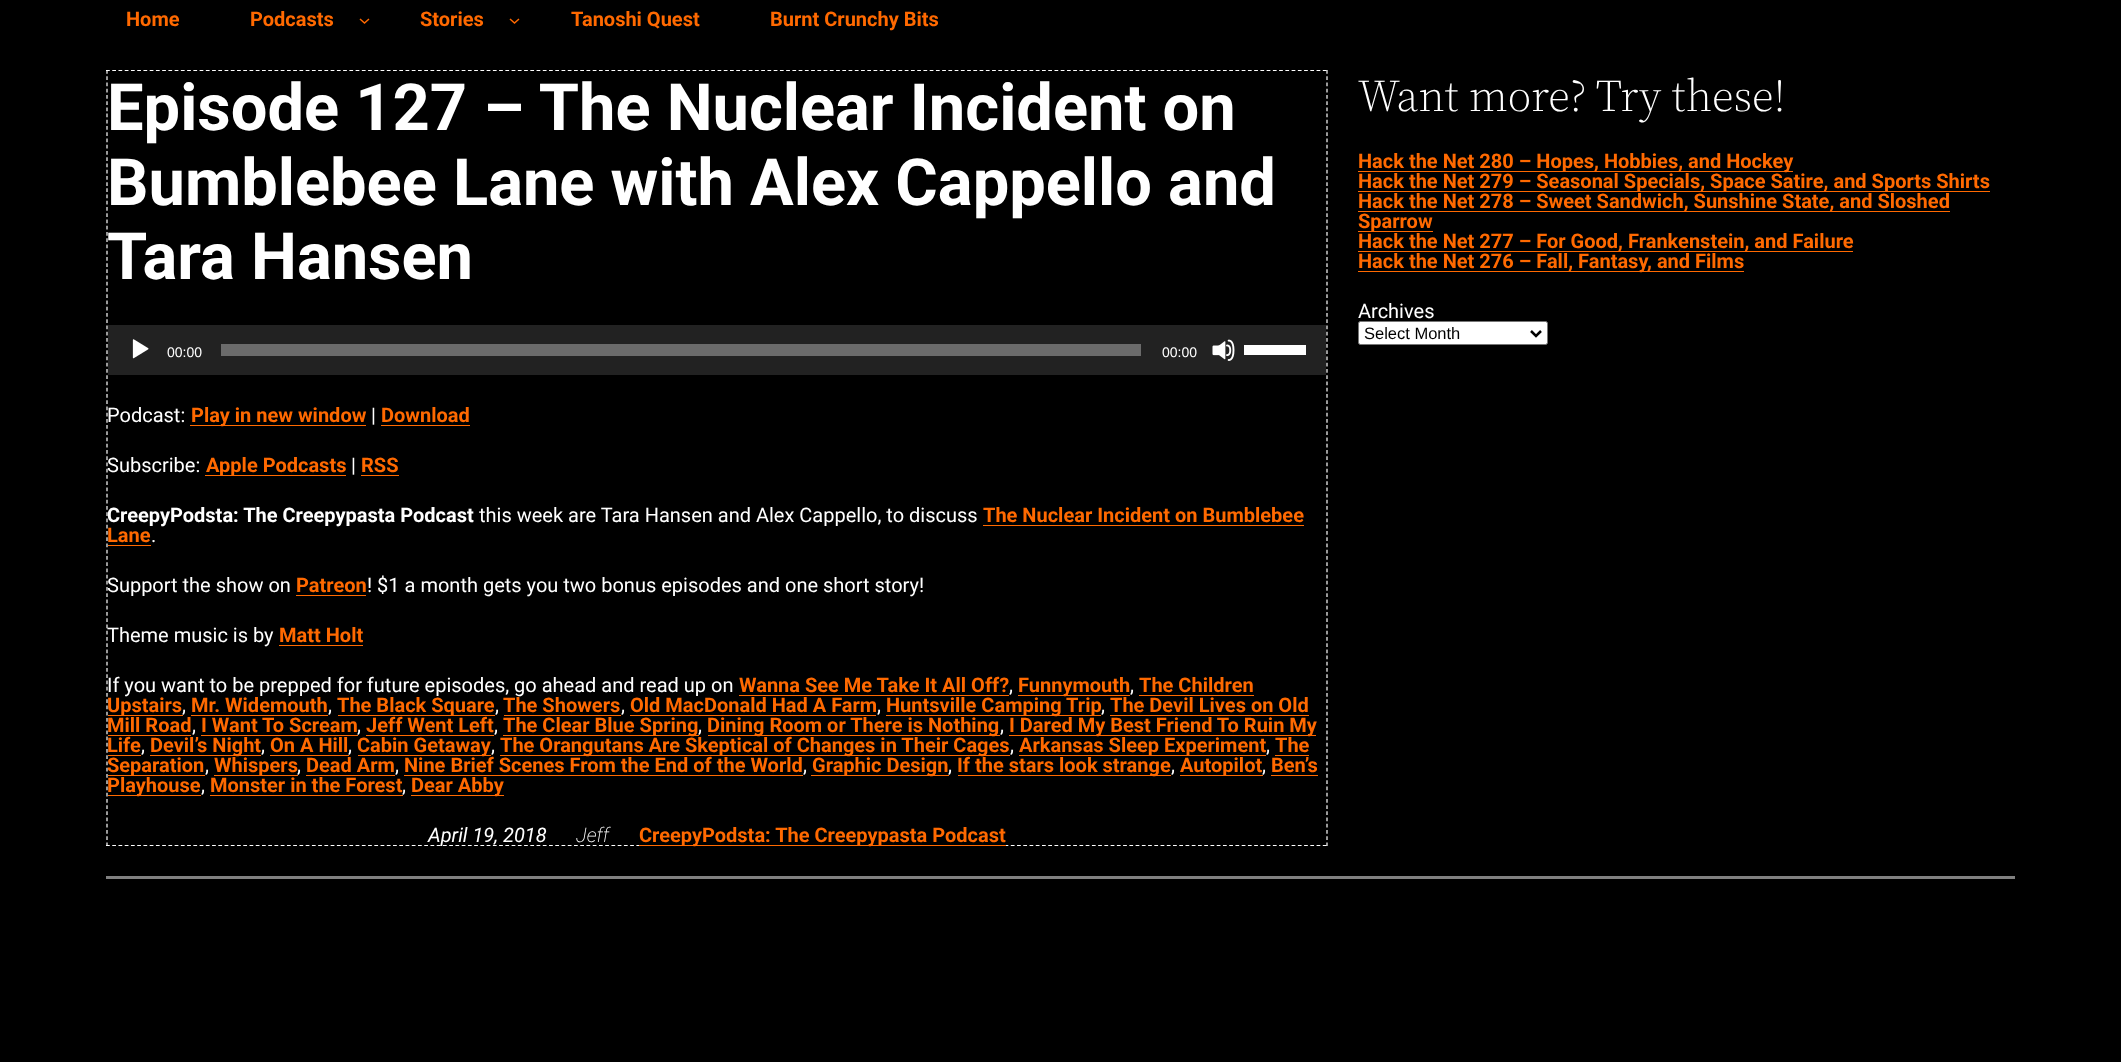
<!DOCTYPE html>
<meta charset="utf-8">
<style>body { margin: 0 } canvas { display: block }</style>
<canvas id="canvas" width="2121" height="1062"></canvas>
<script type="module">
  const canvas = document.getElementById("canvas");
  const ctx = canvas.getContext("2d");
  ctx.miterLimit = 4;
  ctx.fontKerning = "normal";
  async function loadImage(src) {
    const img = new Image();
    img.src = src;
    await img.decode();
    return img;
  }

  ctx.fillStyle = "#000000";
  ctx.fillRect(0, 0, 2121, 1062);
  ctx.font = "bold 20px Roboto";
  ctx.fillStyle = "#ff6900";
  ctx.fillText("Home", 126, 26);
  ctx.fillText("Podcasts", 250, 26);
  ctx.beginPath();
  ctx.moveTo(360, 19);
  ctx.lineTo(364.5, 23);
  ctx.lineTo(369, 19);
  ctx.strokeStyle = "#ff6900";
  ctx.lineWidth = 1.5;
  ctx.stroke();
  ctx.fillText("Stories", 420, 26);
  ctx.beginPath();
  ctx.moveTo(510, 19);
  ctx.lineTo(514.5, 23);
  ctx.lineTo(519, 19);
  ctx.stroke();
  ctx.fillText("Tanoshi Quest", 571, 26);
  ctx.fillText("Burnt Crunchy Bits", 770, 26);
  ctx.beginPath();
  ctx.moveTo(106, 70.5);
  ctx.lineTo(1327.5, 70.5);
  ctx.strokeStyle = "#ffffff";
  ctx.lineWidth = 1.2;
  ctx.setLineDash([3.75, 2.49]);
  ctx.stroke();
  ctx.beginPath();
  ctx.moveTo(1327, 70);
  ctx.lineTo(1327, 846);
  ctx.setLineDash([3.75, 2.48]);
  ctx.stroke();
  ctx.beginPath();
  ctx.moveTo(106, 845.5);
  ctx.lineTo(1327.5, 845.5);
  ctx.setLineDash([3.75, 2.49]);
  ctx.stroke();
  ctx.beginPath();
  ctx.moveTo(107, 70);
  ctx.lineTo(107, 846);
  ctx.setLineDash([3.75, 2.48]);
  ctx.stroke();
  ctx.fillStyle = "#000000";
  ctx.fillRect(108, 71, 1218, 1);
  ctx.font = "bold 65px Roboto";
  ctx.fillStyle = "#ffffff";
  ctx.fillText("Episode 127 – The Nuclear Incident on", 107, 130);
  ctx.fillText("Bumblebee Lane with Alex Cappello and", 107, 205);
  ctx.fillText("Tara Hansen", 107, 279);
  ctx.fillStyle = "#222222";
  ctx.fillRect(108, 325, 1218, 50);
  ctx.drawImage(await loadImage("img1.png"), 132, 339, 17, 20);
  ctx.font = "14px Liberation Sans";
  ctx.fillStyle = "#ffffff";
  ctx.fillText("00:00", 167, 357);
  ctx.fillStyle = "#6b6b6b";
  ctx.fillRect(221, 344, 920, 12);
  ctx.fillStyle = "#ffffff";
  ctx.fillText("00:00", 1162, 357);
  ctx.drawImage(await loadImage("img2.png"), 1212, 339, 23, 22);
  ctx.fillRect(1244, 345, 62, 10);
  ctx.font = "20px Roboto";
  ctx.fillText("Podcast:", 107, 422);
  ctx.fillStyle = "#ff6900";
  ctx.fillRect(190, 425, 176, 1);
  ctx.font = "bold 20px Roboto";
  ctx.fillText("Play in new window", 191, 422);
  ctx.font = "20px Roboto";
  ctx.fillStyle = "#ffffff";
  ctx.fillText("|", 371, 422);
  ctx.font = "bold 20px Roboto";
  ctx.fillStyle = "#ff6900";
  ctx.fillText("Download", 381, 422);
  ctx.fillRect(381, 425, 89, 1);
  ctx.font = "20px Roboto";
  ctx.fillStyle = "#ffffff";
  ctx.fillText("Subscribe:", 107, 472);
  ctx.fillStyle = "#ff6900";
  ctx.fillRect(205, 475, 141, 1);
  ctx.font = "bold 20px Roboto";
  ctx.fillText("Apple Podcasts", 206, 472);
  ctx.font = "20px Roboto";
  ctx.fillStyle = "#ffffff";
  ctx.fillText("|", 351, 472);
  ctx.font = "bold 20px Roboto";
  ctx.fillStyle = "#ff6900";
  ctx.fillText("RSS", 361, 472);
  ctx.fillRect(361, 475, 38, 1);
  ctx.fillStyle = "#ffffff";
  ctx.fillText("CreepyPodsta: The Creepypasta Podcast", 107, 522);
  ctx.font = "20px Roboto";
  ctx.fillText("this week are Tara Hansen and Alex Cappello, to discuss", 479, 522);
  ctx.font = "bold 20px Roboto";
  ctx.fillStyle = "#ff6900";
  ctx.fillText("The Nuclear Incident on Bumblebee", 983, 522);
  ctx.fillRect(983, 525, 321, 1);
  ctx.fillText("Lane", 107, 542);
  ctx.fillRect(108, 545, 43, 1);
  ctx.font = "20px Roboto";
  ctx.fillStyle = "#ffffff";
  ctx.fillText(".", 151, 542);
  ctx.fillText("Support the show on", 107, 592);
  ctx.font = "bold 20px Roboto";
  ctx.fillStyle = "#ff6900";
  ctx.fillText("Patreon", 296, 592);
  ctx.fillRect(296, 595, 70, 1);
  ctx.font = "20px Roboto";
  ctx.fillStyle = "#ffffff";
  ctx.fillText("! $1 a month gets you two bonus episodes and one short story!", 367, 592);
  ctx.fillText("Theme music is by", 107, 642);
  ctx.font = "bold 20px Roboto";
  ctx.fillStyle = "#ff6900";
  ctx.fillText("Matt Holt", 279, 642);
  ctx.fillRect(279, 645, 84, 1);
  ctx.font = "20px Roboto";
  ctx.fillStyle = "#ffffff";
  ctx.fillText("If you want to be prepped for future episodes, go ahead and read up on", 107, 692);
  ctx.font = "bold 20px Roboto";
  ctx.fillStyle = "#ff6900";
  ctx.fillText("Wanna See Me Take It All Off?", 739, 692);
  ctx.fillRect(739, 695, 270, 1);
  ctx.font = "20px Roboto";
  ctx.fillStyle = "#ffffff";
  ctx.fillText(",", 1009, 692);
  ctx.fillStyle = "#ff6900";
  ctx.fillRect(1018, 695, 112, 1);
  ctx.font = "bold 20px Roboto";
  ctx.fillText("Funnymouth", 1018, 692);
  ctx.font = "20px Roboto";
  ctx.fillStyle = "#ffffff";
  ctx.fillText(",", 1130, 692);
  ctx.font = "bold 20px Roboto";
  ctx.fillStyle = "#ff6900";
  ctx.fillText("The Children", 1139, 692);
  ctx.fillRect(1139, 695, 115, 1);
  ctx.fillRect(108, 715, 75, 1);
  ctx.fillText("Upstairs", 107, 712);
  ctx.font = "20px Roboto";
  ctx.fillStyle = "#ffffff";
  ctx.fillText(",", 182, 712);
  ctx.font = "bold 20px Roboto";
  ctx.fillStyle = "#ff6900";
  ctx.fillText("Mr. Widemouth", 191, 712);
  ctx.fillRect(191, 715, 137, 1);
  ctx.font = "20px Roboto";
  ctx.fillStyle = "#ffffff";
  ctx.fillText(",", 328, 712);
  ctx.fillStyle = "#ff6900";
  ctx.fillRect(338, 715, 157, 1);
  ctx.font = "bold 20px Roboto";
  ctx.fillText("The Black Square", 337, 712);
  ctx.font = "20px Roboto";
  ctx.fillStyle = "#ffffff";
  ctx.fillText(",", 495, 712);
  ctx.font = "bold 20px Roboto";
  ctx.fillStyle = "#ff6900";
  ctx.fillText("The Showers", 503, 712);
  ctx.fillRect(504, 715, 117, 1);
  ctx.font = "20px Roboto";
  ctx.fillStyle = "#ffffff";
  ctx.fillText(",", 621, 712);
  ctx.font = "bold 20px Roboto";
  ctx.fillStyle = "#ff6900";
  ctx.fillText("Old MacDonald Had A Farm", 630, 712);
  ctx.fillRect(630, 715, 246, 1);
  ctx.font = "20px Roboto";
  ctx.fillStyle = "#ffffff";
  ctx.fillText(",", 877, 712);
  ctx.fillStyle = "#ff6900";
  ctx.fillRect(886, 715, 215, 1);
  ctx.font = "bold 20px Roboto";
  ctx.fillText("Huntsville Camping Trip", 886, 712);
  ctx.font = "20px Roboto";
  ctx.fillStyle = "#ffffff";
  ctx.fillText(",", 1101, 712);
  ctx.font = "bold 20px Roboto";
  ctx.fillStyle = "#ff6900";
  ctx.fillText("The Devil Lives on Old", 1110, 712);
  ctx.fillRect(1110, 715, 199, 1);
  ctx.fillText("Mill Road", 107, 732);
  ctx.fillRect(108, 735, 83, 1);
  ctx.font = "20px Roboto";
  ctx.fillStyle = "#ffffff";
  ctx.fillText(",", 192, 732);
  ctx.font = "bold 20px Roboto";
  ctx.fillStyle = "#ff6900";
  ctx.fillText("I Want To Scream", 201, 732);
  ctx.fillRect(201, 735, 157, 1);
  ctx.font = "20px Roboto";
  ctx.fillStyle = "#ffffff";
  ctx.fillText(",", 357, 732);
  ctx.font = "bold 20px Roboto";
  ctx.fillStyle = "#ff6900";
  ctx.fillText("Jeff Went Left", 366, 732);
  ctx.fillRect(366, 735, 128, 1);
  ctx.font = "20px Roboto";
  ctx.fillStyle = "#ffffff";
  ctx.fillText(",", 494, 732);
  ctx.fillStyle = "#ff6900";
  ctx.fillRect(503, 735, 196, 1);
  ctx.font = "bold 20px Roboto";
  ctx.fillText("The Clear Blue Spring", 503, 732);
  ctx.font = "20px Roboto";
  ctx.fillStyle = "#ffffff";
  ctx.fillText(",", 698, 732);
  ctx.fillStyle = "#ff6900";
  ctx.fillRect(708, 735, 292, 1);
  ctx.font = "bold 20px Roboto";
  ctx.fillText("Dining Room or There is Nothing", 707, 732);
  ctx.font = "20px Roboto";
  ctx.fillStyle = "#ffffff";
  ctx.fillText(",", 1000, 732);
  ctx.fillStyle = "#ff6900";
  ctx.fillRect(1009, 735, 307, 1);
  ctx.font = "bold 20px Roboto";
  ctx.fillText("I Dared My Best Friend To Ruin My", 1009, 732);
  ctx.fillText("Life", 107, 752);
  ctx.fillRect(108, 755, 33, 1);
  ctx.font = "20px Roboto";
  ctx.fillStyle = "#ffffff";
  ctx.fillText(",", 141, 752);
  ctx.fillStyle = "#ff6900";
  ctx.fillRect(150, 755, 111, 1);
  ctx.font = "bold 20px Roboto";
  ctx.fillText("Devil’s Night", 150, 752);
  ctx.font = "20px Roboto";
  ctx.fillStyle = "#ffffff";
  ctx.fillText(",", 261, 752);
  ctx.font = "bold 20px Roboto";
  ctx.fillStyle = "#ff6900";
  ctx.fillText("On A Hill", 270, 752);
  ctx.fillRect(270, 755, 79, 1);
  ctx.font = "20px Roboto";
  ctx.fillStyle = "#ffffff";
  ctx.fillText(",", 348, 752);
  ctx.fillStyle = "#ff6900";
  ctx.fillRect(358, 755, 133, 1);
  ctx.font = "bold 20px Roboto";
  ctx.fillText("Cabin Getaway", 357, 752);
  ctx.font = "20px Roboto";
  ctx.fillStyle = "#ffffff";
  ctx.fillText(",", 491, 752);
  ctx.fillStyle = "#ff6900";
  ctx.fillRect(500, 755, 510, 1);
  ctx.font = "bold 20px Roboto";
  ctx.fillText("The Orangutans Are Skeptical of Changes in Their Cages", 500, 752);
  ctx.font = "20px Roboto";
  ctx.fillStyle = "#ffffff";
  ctx.fillText(",", 1010, 752);
  ctx.fillStyle = "#ff6900";
  ctx.fillRect(1019, 755, 247, 1);
  ctx.font = "bold 20px Roboto";
  ctx.fillText("Arkansas Sleep Experiment", 1019, 752);
  ctx.font = "20px Roboto";
  ctx.fillStyle = "#ffffff";
  ctx.fillText(",", 1266, 752);
  ctx.font = "bold 20px Roboto";
  ctx.fillStyle = "#ff6900";
  ctx.fillText("The", 1275, 752);
  ctx.fillRect(1275, 755, 34, 1);
  ctx.fillRect(108, 775, 97, 1);
  ctx.fillText("Separation", 107, 772);
  ctx.font = "20px Roboto";
  ctx.fillStyle = "#ffffff";
  ctx.fillText(",", 205, 772);
  ctx.fillStyle = "#ff6900";
  ctx.fillRect(214, 775, 84, 1);
  ctx.font = "bold 20px Roboto";
  ctx.fillText("Whispers", 214, 772);
  ctx.font = "20px Roboto";
  ctx.fillStyle = "#ffffff";
  ctx.fillText(",", 297, 772);
  ctx.font = "bold 20px Roboto";
  ctx.fillStyle = "#ff6900";
  ctx.fillText("Dead Arm", 306, 772);
  ctx.fillRect(306, 775, 89, 1);
  ctx.font = "20px Roboto";
  ctx.fillStyle = "#ffffff";
  ctx.fillText(",", 395, 772);
  ctx.font = "bold 20px Roboto";
  ctx.fillStyle = "#ff6900";
  ctx.fillText("Nine Brief Scenes From the End of the World", 404, 772);
  ctx.fillRect(404, 775, 399, 1);
  ctx.font = "20px Roboto";
  ctx.fillStyle = "#ffffff";
  ctx.fillText(",", 803, 772);
  ctx.fillStyle = "#ff6900";
  ctx.fillRect(811, 775, 138, 1);
  ctx.font = "bold 20px Roboto";
  ctx.fillText("Graphic Design", 812, 772);
  ctx.font = "20px Roboto";
  ctx.fillStyle = "#ffffff";
  ctx.fillText(",", 948, 772);
  ctx.fillStyle = "#ff6900";
  ctx.fillRect(958, 775, 213, 1);
  ctx.font = "bold 20px Roboto";
  ctx.fillText("If the stars look strange", 957, 772);
  ctx.font = "20px Roboto";
  ctx.fillStyle = "#ffffff";
  ctx.fillText(",", 1171, 772);
  ctx.fillStyle = "#ff6900";
  ctx.fillRect(1180, 775, 83, 1);
  ctx.font = "bold 20px Roboto";
  ctx.fillText("Autopilot", 1180, 772);
  ctx.font = "20px Roboto";
  ctx.fillStyle = "#ffffff";
  ctx.fillText(",", 1262, 772);
  ctx.font = "bold 20px Roboto";
  ctx.fillStyle = "#ff6900";
  ctx.fillText("Ben’s", 1271, 772);
  ctx.fillRect(1271, 775, 47, 1);
  ctx.fillRect(108, 795, 93, 1);
  ctx.fillText("Playhouse", 107, 792);
  ctx.font = "20px Roboto";
  ctx.fillStyle = "#ffffff";
  ctx.fillText(",", 201, 792);
  ctx.font = "bold 20px Roboto";
  ctx.fillStyle = "#ff6900";
  ctx.fillText("Monster in the Forest", 210, 792);
  ctx.fillRect(210, 795, 193, 1);
  ctx.font = "20px Roboto";
  ctx.fillStyle = "#ffffff";
  ctx.fillText(",", 402, 792);
  ctx.fillStyle = "#ff6900";
  ctx.fillRect(411, 795, 93, 1);
  ctx.font = "bold 20px Roboto";
  ctx.fillText("Dear Abby", 411, 792);
  ctx.font = "italic 20px Roboto";
  ctx.fillStyle = "#ffffff";
  ctx.fillText("April 19, 2018", 428, 842);
  ctx.font = "italic 200 20px Roboto";
  ctx.fillText("Jeff", 576, 842);
  ctx.fillStyle = "#ff6900";
  ctx.fillRect(639, 845, 367, 1);
  ctx.font = "bold 20px Roboto";
  ctx.fillText("CreepyPodsta: The Creepypasta Podcast", 639, 842);
  ctx.font = "300 45px 'Source Serif 4'";
  ctx.fillStyle = "#ffffff";
  ctx.fillText("Want more? Try these!", 1358, 111);
  ctx.fillStyle = "#ff6900";
  ctx.fillRect(1358, 171, 435, 1);
  ctx.font = "bold 20px Roboto";
  ctx.fillText("Hack the Net 280 – Hopes, Hobbies, and Hockey", 1358, 168);
  ctx.fillRect(1358, 191, 632, 1);
  ctx.fillText("Hack the Net 279 – Seasonal Specials, Space Satire, and Sports Shirts", 1358, 188);
  ctx.fillRect(1358, 211, 592, 1);
  ctx.fillText("Hack the Net 278 – Sweet Sandwich, Sunshine State, and Sloshed", 1358, 208);
  ctx.fillRect(1358, 231, 75, 1);
  ctx.fillText("Sparrow", 1358, 228);
  ctx.fillRect(1358, 251, 495, 1);
  ctx.fillText("Hack the Net 277 – For Good, Frankenstein, and Failure", 1358, 248);
  ctx.fillRect(1358, 271, 386, 1);
  ctx.fillText("Hack the Net 276 – Fall, Fantasy, and Films", 1358, 268);
  ctx.font = "20px Roboto";
  ctx.fillStyle = "#ffffff";
  ctx.fillText("Archives", 1358, 318);
  ctx.beginPath();
  ctx.roundRect(1358.5, 321.5, 189, 23, 2);
  ctx.fill();
  ctx.strokeStyle = "#767676";
  ctx.lineWidth = 1;
  ctx.setLineDash([]);
  ctx.stroke();
  ctx.beginPath();
  ctx.moveTo(1531, 331);
  ctx.lineTo(1536, 336);
  ctx.lineTo(1541, 331);
  ctx.strokeStyle = "#000000";
  ctx.lineWidth = 2.5;
  ctx.stroke();
  ctx.font = "16.5px Liberation Sans";
  ctx.fillStyle = "#000000";
  ctx.fillText("Select Month", 1364, 339);
  ctx.fillStyle = "#808080";
  ctx.fillRect(106, 876, 1909, 3);
</script>
